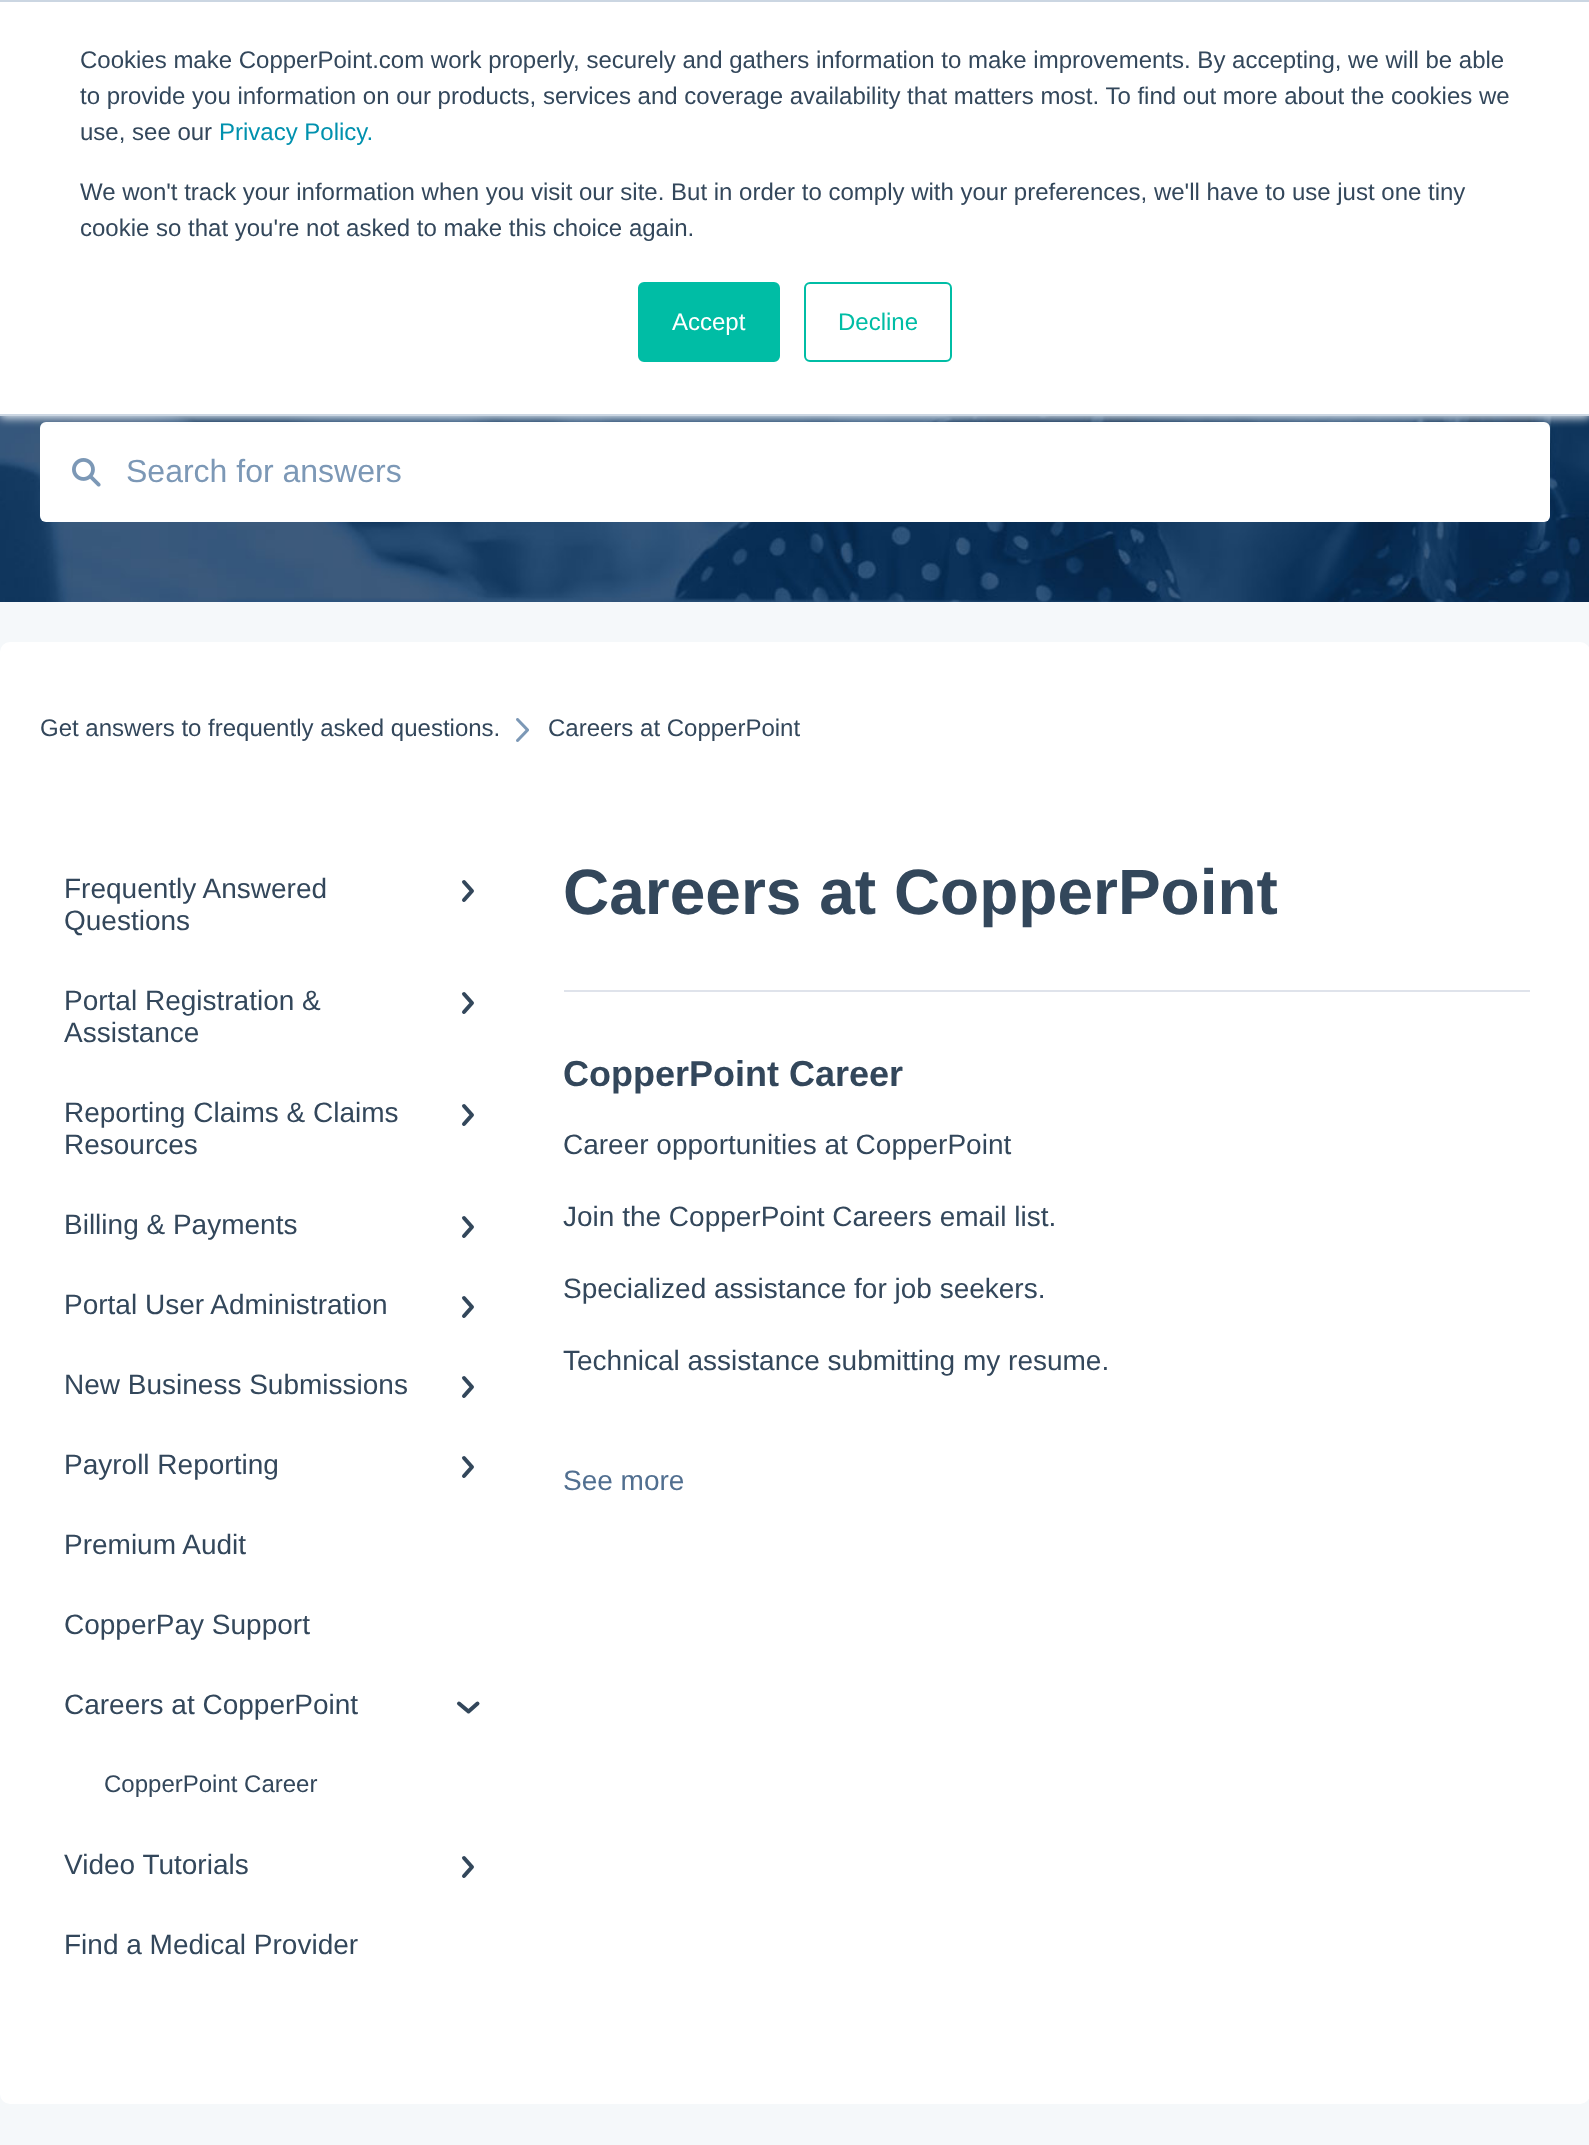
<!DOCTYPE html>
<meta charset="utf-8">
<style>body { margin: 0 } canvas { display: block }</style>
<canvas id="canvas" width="1589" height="2145"></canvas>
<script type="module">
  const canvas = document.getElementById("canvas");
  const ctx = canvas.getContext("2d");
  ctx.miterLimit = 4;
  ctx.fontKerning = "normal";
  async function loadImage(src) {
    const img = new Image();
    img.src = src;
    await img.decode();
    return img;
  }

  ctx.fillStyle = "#f5f8fa";
  ctx.fillRect(0, 0, 1589, 2145);
  ctx.drawImage(await loadImage("img1.png"), 0, 416, 1589, 186);
  ctx.fillStyle = "#ffffff";
  ctx.beginPath();
  ctx.roundRect(40, 422, 1510, 100, 6);
  ctx.fill();
  ctx.fillStyle = "#eaf0f6";
  ctx.filter = "blur(5px)";
  ctx.beginPath();
  ctx.rect(0, 2, 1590, 416);
  ctx.fill();
  ctx.filter = "none";
  ctx.fillStyle = "#ffffff";
  ctx.fillRect(0, 2, 1589, 412);
  ctx.fillStyle = "#cbd6e2";
  ctx.fillRect(0, 0, 1589, 2);
  ctx.fillRect(0, 414, 1589, 2);
  ctx.font = "24px Liberation Sans";
  ctx.fillStyle = "#33475b";
  ctx.fillText("Cookies make CopperPoint.com work properly, securely and gathers information to make improvements. By accepting, we will be able", 80, 68);
  ctx.fillText("to provide you information on our products, services and coverage availability that matters most. To find out more about the cookies we", 80, 104);
  ctx.fillText("use, see our", 80, 140);
  ctx.fillStyle = "#0091ae";
  ctx.fillText("Privacy Policy.", 219, 140);
  ctx.fillStyle = "#33475b";
  ctx.fillText("We won't track your information when you visit our site. But in order to comply with your preferences, we'll have to use just one tiny", 80, 200);
  ctx.fillText("cookie so that you're not asked to make this choice again.", 80, 236);
  ctx.fillStyle = "#00bda5";
  ctx.beginPath();
  ctx.roundRect(639, 283, 140, 78, 5);
  ctx.fill();
  ctx.strokeStyle = "#00bda5";
  ctx.lineWidth = 2;
  ctx.stroke();
  ctx.fillStyle = "#ffffff";
  ctx.fillText("Accept", 672, 330);
  ctx.beginPath();
  ctx.roundRect(805, 283, 146, 78, 5);
  ctx.stroke();
  ctx.fillStyle = "#00bda5";
  ctx.fillText("Decline", 838, 330);
  ctx.drawImage(await loadImage("img2.png"), 72, 458, 29, 29);
  ctx.font = "32px Liberation Sans";
  ctx.fillStyle = "#7c98b6";
  ctx.fillText("Search for answers", 126, 482);
  ctx.fillStyle = "#ffffff";
  ctx.beginPath();
  ctx.roundRect(0, 642, 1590, 1462, 10);
  ctx.fill();
  ctx.font = "24px Liberation Sans";
  ctx.fillStyle = "#33475b";
  ctx.fillText("Get answers to frequently asked questions.", 40, 736);
  ctx.drawImage(await loadImage("img3.png"), 516, 718, 13, 24);
  ctx.fillText("Careers at CopperPoint", 548, 736);
  ctx.font = "28px Liberation Sans";
  ctx.fillText("Frequently Answered", 64, 898);
  ctx.fillText("Questions", 64, 930);
  ctx.beginPath();
  ctx.moveTo(464, 882);
  ctx.lineTo(472, 891);
  ctx.lineTo(464, 900);
  ctx.strokeStyle = "#33475b";
  ctx.lineWidth = 4;
  ctx.lineCap = "round";
  ctx.lineJoin = "round";
  ctx.stroke();
  ctx.fillText("Portal Registration &", 64, 1010);
  ctx.fillText("Assistance", 64, 1042);
  ctx.beginPath();
  ctx.moveTo(464, 994);
  ctx.lineTo(472, 1003);
  ctx.lineTo(464, 1012);
  ctx.stroke();
  ctx.fillText("Reporting Claims & Claims", 64, 1122);
  ctx.fillText("Resources", 64, 1154);
  ctx.beginPath();
  ctx.moveTo(464, 1106);
  ctx.lineTo(472, 1115);
  ctx.lineTo(464, 1124);
  ctx.stroke();
  ctx.fillText("Billing & Payments", 64, 1234);
  ctx.beginPath();
  ctx.moveTo(464, 1218);
  ctx.lineTo(472, 1227);
  ctx.lineTo(464, 1236);
  ctx.stroke();
  ctx.fillText("Portal User Administration", 64, 1314);
  ctx.beginPath();
  ctx.moveTo(464, 1298);
  ctx.lineTo(472, 1307);
  ctx.lineTo(464, 1316);
  ctx.stroke();
  ctx.fillText("New Business Submissions", 64, 1394);
  ctx.beginPath();
  ctx.moveTo(464, 1378);
  ctx.lineTo(472, 1387);
  ctx.lineTo(464, 1396);
  ctx.stroke();
  ctx.fillText("Payroll Reporting", 64, 1474);
  ctx.beginPath();
  ctx.moveTo(464, 1458);
  ctx.lineTo(472, 1467);
  ctx.lineTo(464, 1476);
  ctx.stroke();
  ctx.fillText("Premium Audit", 64, 1554);
  ctx.fillText("CopperPay Support", 64, 1634);
  ctx.fillText("Careers at CopperPoint", 64, 1714);
  ctx.beginPath();
  ctx.moveTo(477.5, 1703.5);
  ctx.lineTo(468.5, 1711.5);
  ctx.lineTo(459, 1703.5);
  ctx.stroke();
  ctx.font = "24px Liberation Sans";
  ctx.fillText("CopperPoint Career", 104, 1792);
  ctx.font = "28px Liberation Sans";
  ctx.fillText("Video Tutorials", 64, 1874);
  ctx.beginPath();
  ctx.moveTo(464, 1858);
  ctx.lineTo(472, 1867);
  ctx.lineTo(464, 1876);
  ctx.stroke();
  ctx.fillText("Find a Medical Provider", 64, 1954);
  ctx.font = "bold 64px Liberation Sans";
  ctx.fillText("Careers at CopperPoint", 563, 914);
  ctx.fillStyle = "#dfe3eb";
  ctx.fillRect(564, 990, 966, 2);
  ctx.font = "bold 36px Liberation Sans";
  ctx.fillStyle = "#33475b";
  ctx.fillText("CopperPoint Career", 563, 1086);
  ctx.font = "28px Liberation Sans";
  ctx.fillText("Career opportunities at CopperPoint", 563, 1154);
  ctx.fillText("Join the CopperPoint Careers email list.", 563, 1226);
  ctx.fillText("Specialized assistance for job seekers.", 563, 1298);
  ctx.fillText("Technical assistance submitting my resume.", 563, 1370);
  ctx.fillStyle = "#516f90";
  ctx.fillText("See more", 563, 1490);
</script>
